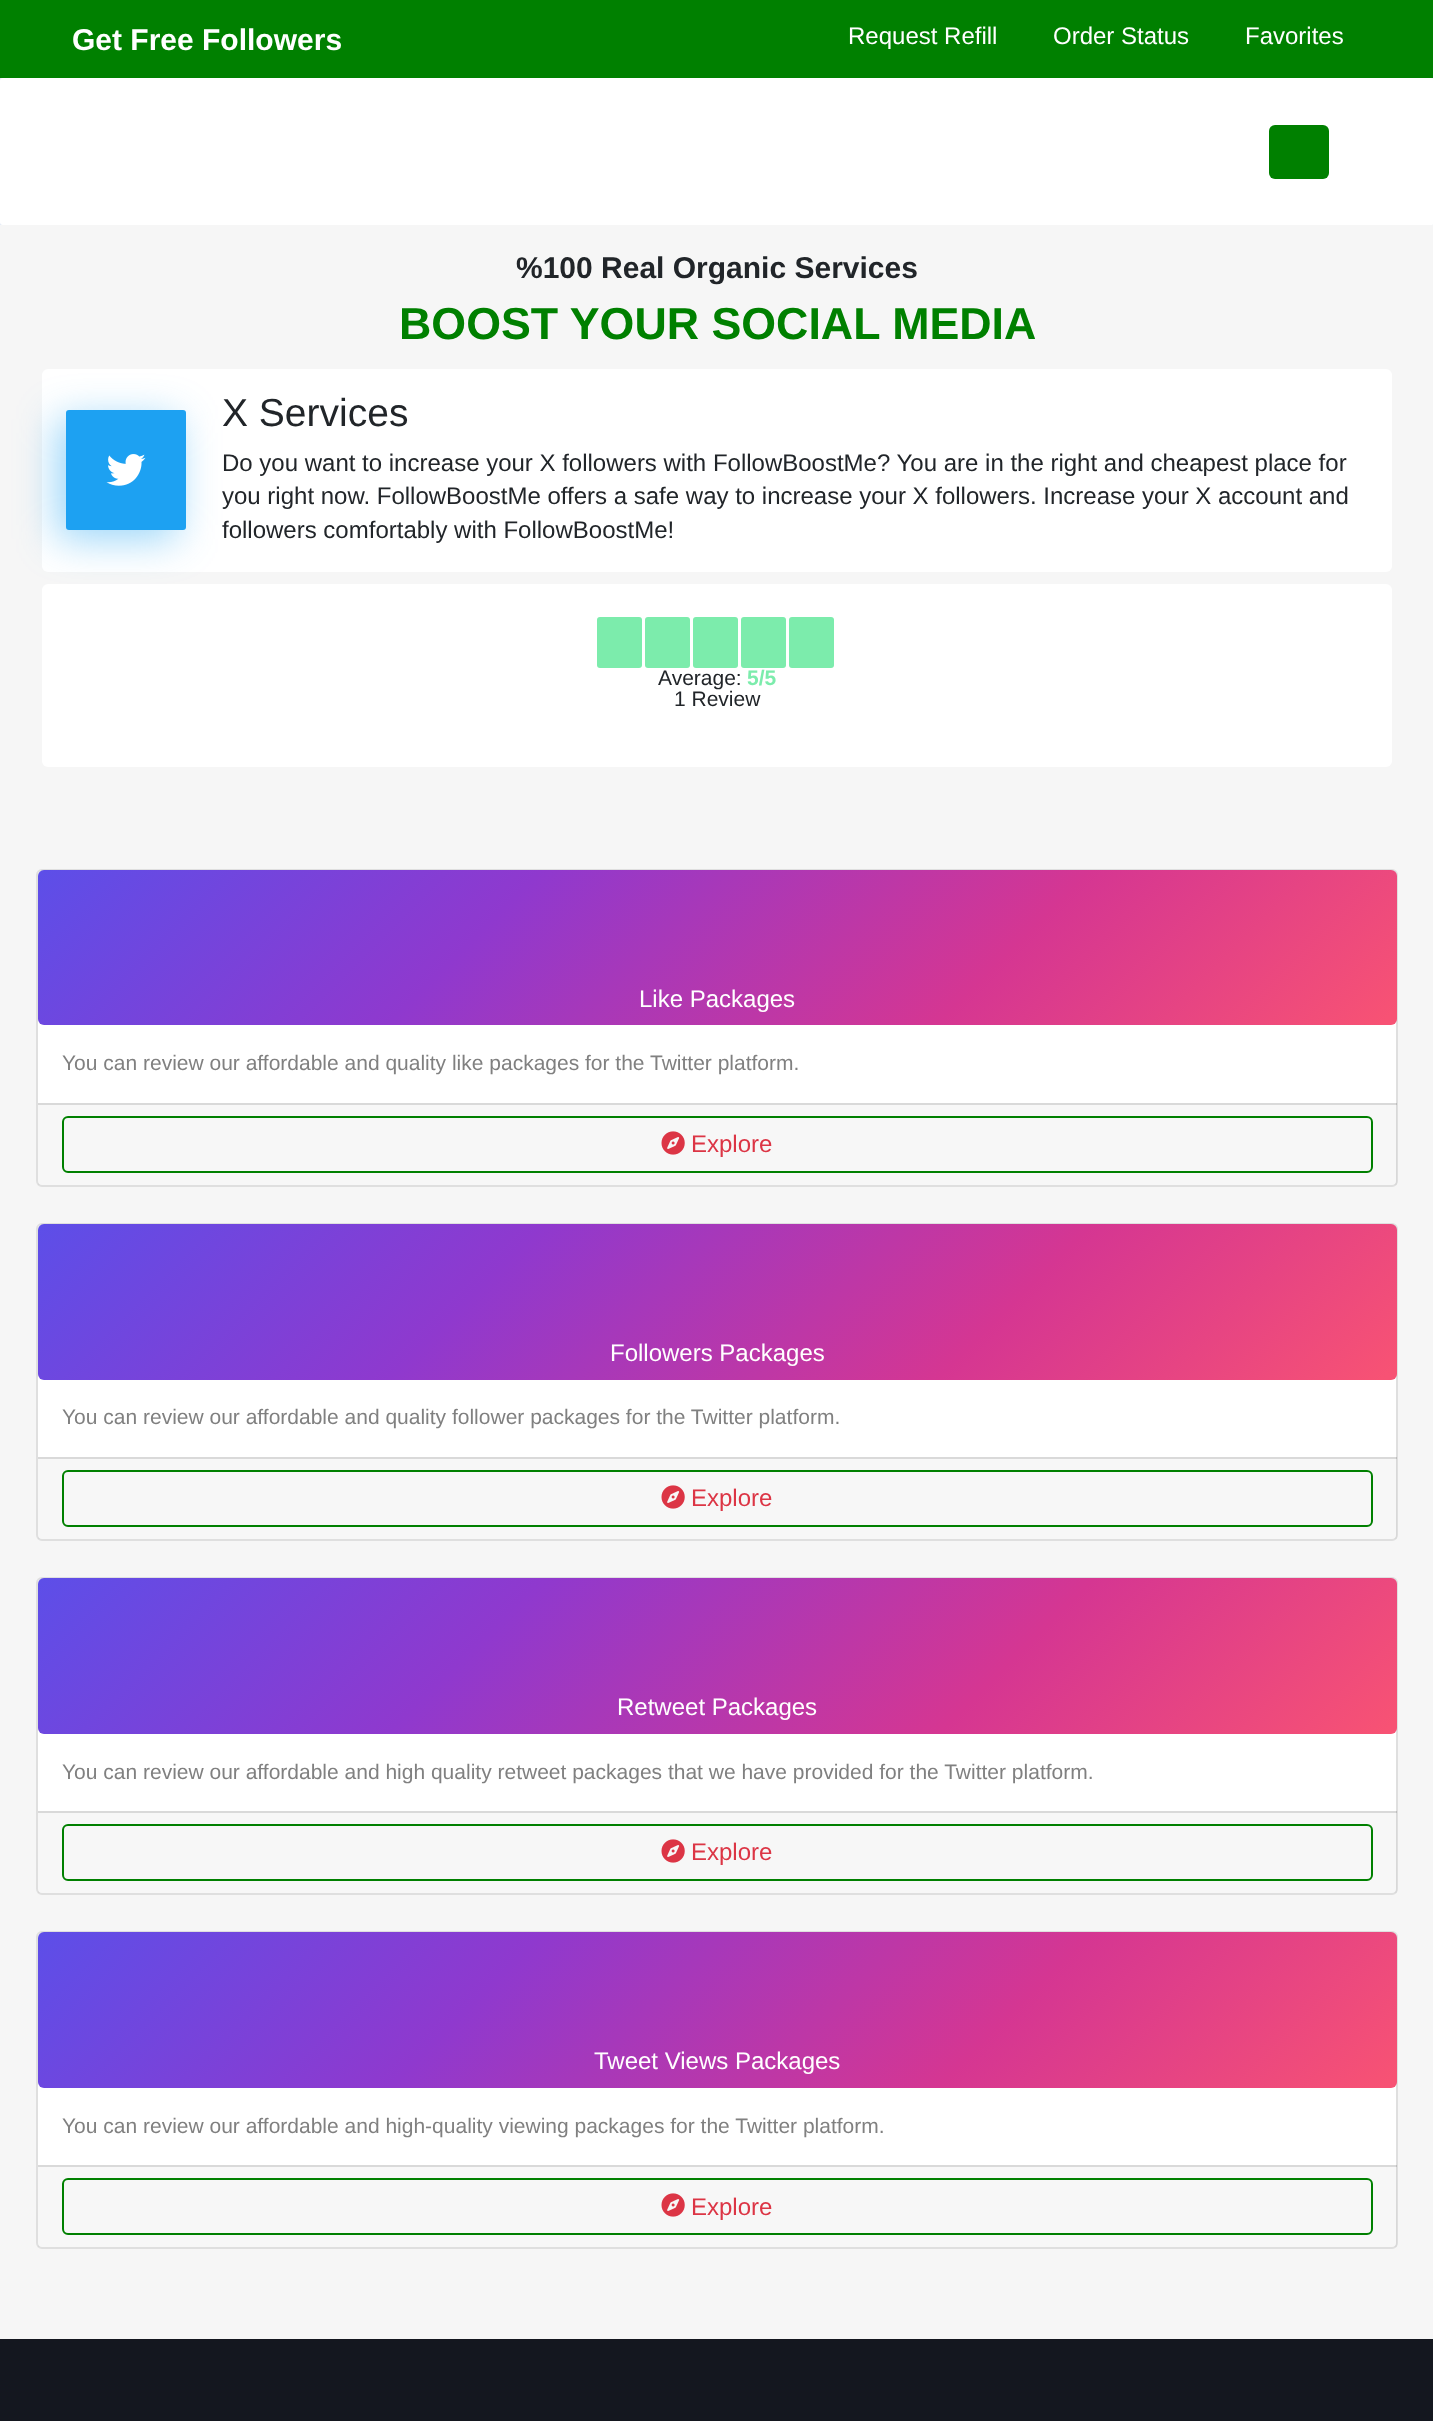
<!DOCTYPE html>
<meta charset="utf-8">
<style>body { margin: 0 } canvas { display: block }</style>
<canvas id="canvas" width="1433" height="2421"></canvas>
<script type="module">
  const canvas = document.getElementById("canvas");
  const ctx = canvas.getContext("2d");
  ctx.miterLimit = 4;
  ctx.fontKerning = "normal";
  async function loadImage(src) {
    const img = new Image();
    img.src = src;
    await img.decode();
    return img;
  }
  let gradient;

  ctx.fillStyle = "#e4ebf6";
  ctx.fillRect(0, 0, 1433, 2421);
  ctx.fillStyle = "#008000";
  ctx.fillRect(0, 0, 1433, 78);
  ctx.font = "bold 30px Liberation Sans";
  ctx.fillStyle = "#ffffff";
  ctx.fillText("Get Free Followers", 72, 50);
  ctx.font = "24px Liberation Sans";
  ctx.fillText("Request Refill", 848, 44);
  ctx.fillText("Order Status", 1053, 44);
  ctx.fillText("Favorites", 1245, 44);
  ctx.beginPath();
  ctx.roundRect(0, 78, 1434, 147, 3);
  ctx.fill();
  ctx.fillStyle = "#008000";
  ctx.beginPath();
  ctx.roundRect(1269, 125, 60, 54, 6);
  ctx.fill();
  ctx.fillStyle = "#f6f6f6";
  ctx.fillRect(0, 225, 1433, 2114);
  ctx.font = "bold 30px Liberation Sans";
  ctx.fillStyle = "#212529";
  ctx.fillText("%100 Real Organic Services", 516, 278);
  ctx.font = "bold 44.75px Liberation Sans";
  ctx.fillStyle = "#008000";
  ctx.fillText("BOOST YOUR SOCIAL MEDIA", 399, 339);
  ctx.fillStyle = "#ffffff";
  ctx.beginPath();
  ctx.roundRect(42, 369, 1350, 203, 6);
  ctx.fill();
  ctx.fillStyle = "rgba(29, 161, 242, 0.45)";
  ctx.filter = "blur(20px)";
  ctx.beginPath();
  ctx.roundRect(57, 419, 120, 120, 3);
  ctx.fill();
  ctx.filter = "none";
  ctx.fillStyle = "#1da1f2";
  ctx.beginPath();
  ctx.roundRect(66, 410, 120, 120, 3);
  ctx.fill();
  ctx.drawImage(await loadImage("img1.png"), 106, 454, 40, 32);
  ctx.font = "39px Liberation Sans";
  ctx.fillStyle = "#212529";
  ctx.fillText("X Services", 222, 426);
  ctx.font = "24px Liberation Sans";
  ctx.fillText("Do you want to increase your X followers with FollowBoostMe? You are in the right and cheapest place for", 222, 471);
  ctx.fillText("you right now. FollowBoostMe offers a safe way to increase your X followers. Increase your X account and", 222, 504);
  ctx.fillText("followers comfortably with FollowBoostMe!", 222, 538);
  ctx.fillStyle = "#ffffff";
  ctx.beginPath();
  ctx.roundRect(42, 584, 1350, 183, 6);
  ctx.fill();
  ctx.fillStyle = "#7cecac";
  ctx.beginPath();
  ctx.roundRect(597, 617, 45, 51, 3);
  ctx.fill();
  ctx.beginPath();
  ctx.roundRect(645, 617, 45, 51, 3);
  ctx.fill();
  ctx.beginPath();
  ctx.roundRect(693, 617, 45, 51, 3);
  ctx.fill();
  ctx.beginPath();
  ctx.roundRect(741, 617, 45, 51, 3);
  ctx.fill();
  ctx.beginPath();
  ctx.roundRect(789, 617, 45, 51, 3);
  ctx.fill();
  ctx.font = "21px Liberation Sans";
  ctx.fillStyle = "#212529";
  ctx.fillText("Average:", 658, 685);
  ctx.font = "bold 21px Liberation Sans";
  ctx.fillStyle = "#7cecac";
  ctx.fillText("5/5", 747, 685);
  ctx.font = "21px Liberation Sans";
  ctx.fillStyle = "#212529";
  ctx.fillText("1 Review", 674, 706);
  ctx.fillStyle = "#ffffff";
  ctx.beginPath();
  ctx.roundRect(37, 870, 1360, 316, 5);
  ctx.fill();
  ctx.strokeStyle = "#dfdfdf";
  ctx.lineWidth = 2;
  ctx.stroke();
  gradient = ctx.createLinearGradient(1095, 1326, 331, 562);
  gradient.addColorStop(0.01, "#f75274");
  gradient.addColorStop(0.3, "#d53692");
  gradient.addColorStop(0.66, "#8f39ce");
  gradient.addColorStop(1, "#5b4fe9");
  ctx.fillStyle = gradient;
  ctx.beginPath();
  ctx.roundRect(38, 870, 1359, 155, 6);
  ctx.fill();
  ctx.font = "24px Liberation Sans";
  ctx.fillStyle = "#ffffff";
  ctx.fillText("Like Packages", 639, 1007);
  ctx.font = "21px Liberation Sans";
  ctx.fillStyle = "#808080";
  ctx.fillText("You can review our affordable and quality like packages for the Twitter platform.", 62, 1070);
  ctx.fillStyle = "rgba(0, 0, 0, 0.03)";
  ctx.fillRect(38, 1103, 1359, 82);
  ctx.fillStyle = "rgba(0, 0, 0, 0.12)";
  ctx.fillRect(38, 1103, 1359, 2);
  ctx.beginPath();
  ctx.roundRect(63, 1117, 1309, 55, 5);
  ctx.strokeStyle = "#008000";
  ctx.stroke();
  ctx.drawImage(await loadImage("img2.png"), 661, 1131, 24, 24);
  ctx.font = "24px Liberation Sans";
  ctx.fillStyle = "#dc3545";
  ctx.fillText("Explore", 691, 1152);
  ctx.fillStyle = "#ffffff";
  ctx.beginPath();
  ctx.roundRect(37, 1224, 1360, 316, 5);
  ctx.fill();
  ctx.strokeStyle = "#dfdfdf";
  ctx.stroke();
  gradient = ctx.createLinearGradient(1096, 1681, 331, 916);
  gradient.addColorStop(0.01, "#f75274");
  gradient.addColorStop(0.3, "#d53692");
  gradient.addColorStop(0.66, "#8f39ce");
  gradient.addColorStop(1, "#5b4fe9");
  ctx.fillStyle = gradient;
  ctx.beginPath();
  ctx.roundRect(38, 1224, 1359, 156, 6);
  ctx.fill();
  ctx.fillStyle = "#ffffff";
  ctx.fillText("Followers Packages", 610, 1361);
  ctx.font = "21px Liberation Sans";
  ctx.fillStyle = "#808080";
  ctx.fillText("You can review our affordable and quality follower packages for the Twitter platform.", 62, 1424);
  ctx.fillStyle = "rgba(0, 0, 0, 0.03)";
  ctx.fillRect(38, 1457, 1359, 82);
  ctx.fillStyle = "rgba(0, 0, 0, 0.12)";
  ctx.fillRect(38, 1457, 1359, 2);
  ctx.beginPath();
  ctx.roundRect(63, 1471, 1309, 55, 5);
  ctx.strokeStyle = "#008000";
  ctx.stroke();
  ctx.drawImage(await loadImage("img2.png"), 661, 1485, 24, 24);
  ctx.font = "24px Liberation Sans";
  ctx.fillStyle = "#dc3545";
  ctx.fillText("Explore", 691, 1506);
  ctx.fillStyle = "#ffffff";
  ctx.beginPath();
  ctx.roundRect(37, 1578, 1360, 316, 5);
  ctx.fill();
  ctx.strokeStyle = "#dfdfdf";
  ctx.stroke();
  gradient = ctx.createLinearGradient(1096, 2035, 331, 1270);
  gradient.addColorStop(0.01, "#f75274");
  gradient.addColorStop(0.3, "#d53692");
  gradient.addColorStop(0.66, "#8f39ce");
  gradient.addColorStop(1, "#5b4fe9");
  ctx.fillStyle = gradient;
  ctx.beginPath();
  ctx.roundRect(38, 1578, 1359, 156, 6);
  ctx.fill();
  ctx.fillStyle = "#ffffff";
  ctx.fillText("Retweet Packages", 617, 1715);
  ctx.font = "21px Liberation Sans";
  ctx.fillStyle = "#808080";
  ctx.fillText("You can review our affordable and high quality retweet packages that we have provided for the Twitter platform.", 62, 1779);
  ctx.fillStyle = "rgba(0, 0, 0, 0.03)";
  ctx.fillRect(38, 1811, 1359, 82);
  ctx.fillStyle = "rgba(0, 0, 0, 0.12)";
  ctx.fillRect(38, 1811, 1359, 2);
  ctx.beginPath();
  ctx.roundRect(63, 1825, 1309, 55, 5);
  ctx.strokeStyle = "#008000";
  ctx.stroke();
  ctx.drawImage(await loadImage("img2.png"), 661, 1839, 24, 24);
  ctx.font = "24px Liberation Sans";
  ctx.fillStyle = "#dc3545";
  ctx.fillText("Explore", 691, 1860);
  ctx.fillStyle = "#ffffff";
  ctx.beginPath();
  ctx.roundRect(37, 1932, 1360, 316, 5);
  ctx.fill();
  ctx.strokeStyle = "#dfdfdf";
  ctx.stroke();
  gradient = ctx.createLinearGradient(1096, 2389, 331, 1624);
  gradient.addColorStop(0.01, "#f75274");
  gradient.addColorStop(0.3, "#d53692");
  gradient.addColorStop(0.66, "#8f39ce");
  gradient.addColorStop(1, "#5b4fe9");
  ctx.fillStyle = gradient;
  ctx.beginPath();
  ctx.roundRect(38, 1932, 1359, 156, 6);
  ctx.fill();
  ctx.fillStyle = "#ffffff";
  ctx.fillText("Tweet Views Packages", 594, 2069);
  ctx.font = "21px Liberation Sans";
  ctx.fillStyle = "#808080";
  ctx.fillText("You can review our affordable and high-quality viewing packages for the Twitter platform.", 62, 2133);
  ctx.fillStyle = "rgba(0, 0, 0, 0.03)";
  ctx.fillRect(38, 2165, 1359, 82);
  ctx.fillStyle = "rgba(0, 0, 0, 0.12)";
  ctx.fillRect(38, 2165, 1359, 2);
  ctx.beginPath();
  ctx.roundRect(63, 2179, 1309, 55, 5);
  ctx.strokeStyle = "#008000";
  ctx.stroke();
  ctx.drawImage(await loadImage("img2.png"), 661, 2193, 24, 24);
  ctx.font = "24px Liberation Sans";
  ctx.fillStyle = "#dc3545";
  ctx.fillText("Explore", 691, 2215);
  ctx.fillStyle = "#14171f";
  ctx.fillRect(0, 2339, 1433, 82);
</script>
